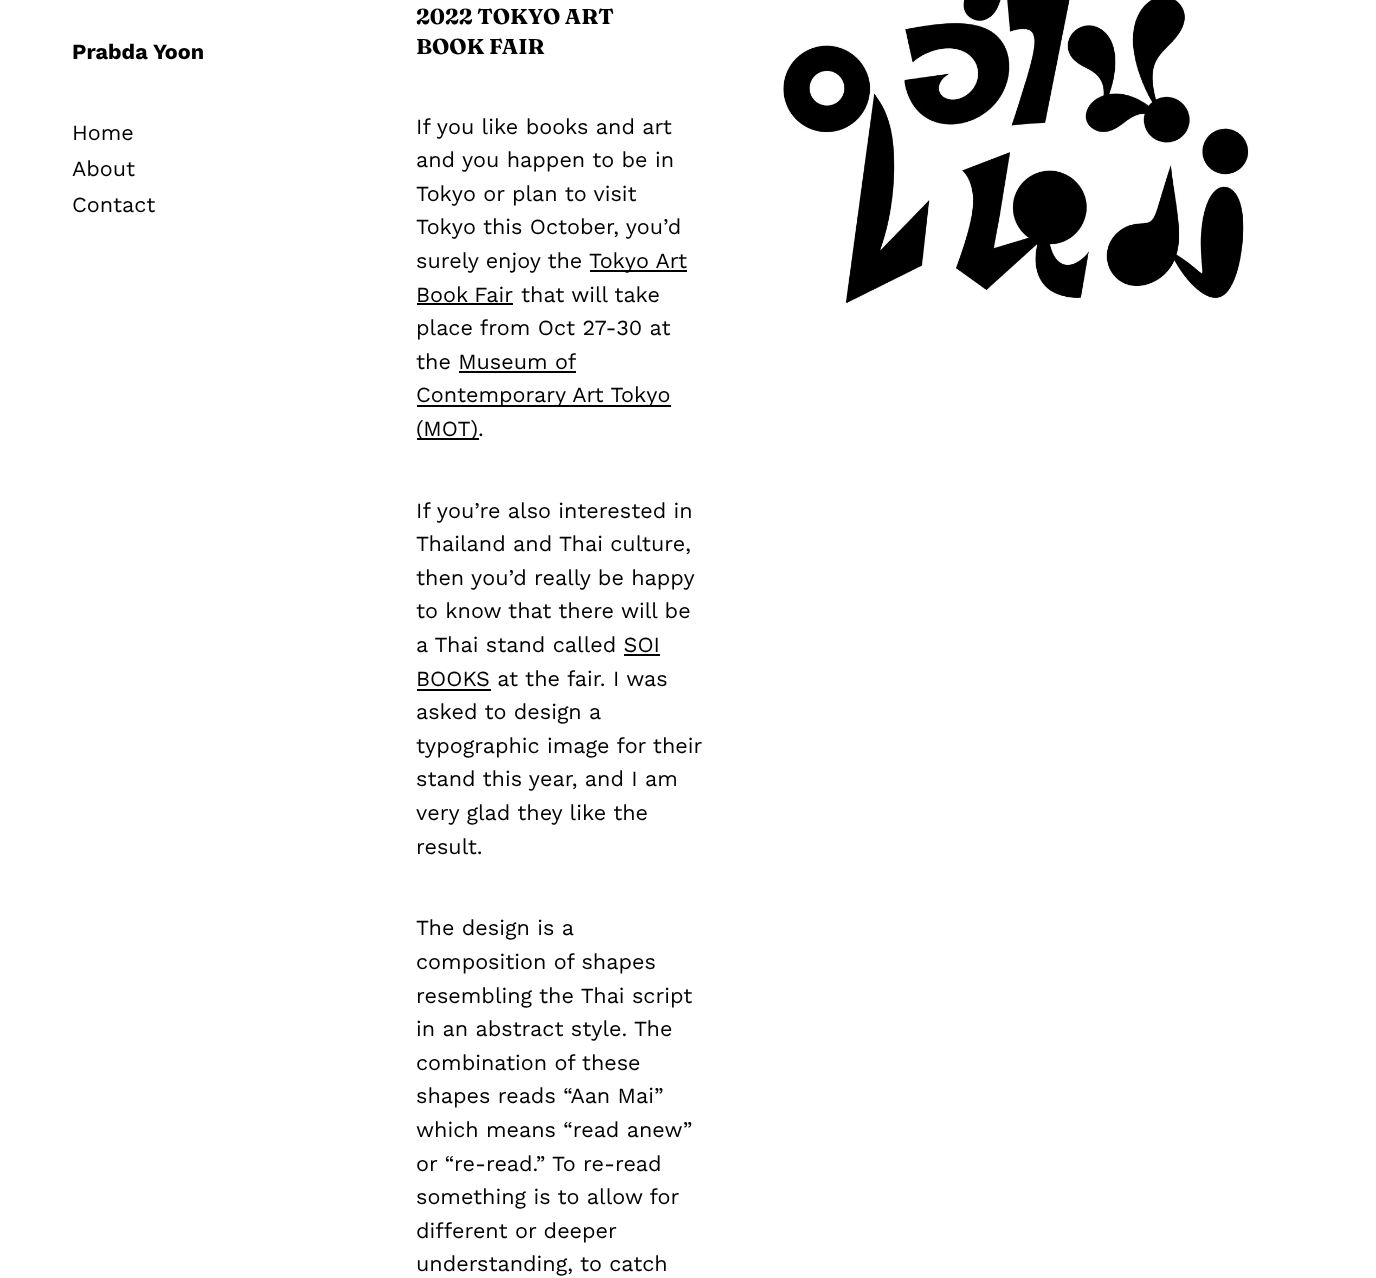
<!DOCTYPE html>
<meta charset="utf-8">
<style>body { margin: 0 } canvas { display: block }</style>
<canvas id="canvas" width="1376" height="1278"></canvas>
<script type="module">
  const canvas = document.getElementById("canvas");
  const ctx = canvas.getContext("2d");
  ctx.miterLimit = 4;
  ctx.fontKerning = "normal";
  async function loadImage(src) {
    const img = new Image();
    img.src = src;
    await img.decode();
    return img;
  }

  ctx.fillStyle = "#ffffff";
  ctx.fillRect(0, 0, 1376, 1278);
  ctx.font = "bold 21.6px Work Sans";
  ctx.fillStyle = "#000000";
  ctx.fillText("Prabda Yoon", 72, 59);
  ctx.font = "21.6px Work Sans";
  ctx.fillText("Home", 72, 140);
  ctx.fillText("About", 72, 176);
  ctx.fillText("Contact", 72, 212);
  ctx.font = "bold 21.6px Fraunces";
  ctx.fillText("2022 TOKYO ART", 416, 24);
  ctx.fillText("BOOK FAIR", 416, 54);
  ctx.font = "21.6px Work Sans";
  ctx.fillText("If you like books and art", 416, 134);
  ctx.fillText("and you happen to be in", 416, 167);
  ctx.fillText("Tokyo or plan to visit", 416, 201);
  ctx.fillText("Tokyo this October, you’d", 416, 234);
  ctx.fillText("surely enjoy the", 416, 268);
  ctx.fillRect(590, 270, 97, 2);
  ctx.fillText("Tokyo Art", 589, 268);
  ctx.wordSpacing = "-1px";
  ctx.fillText("Book Fair", 416, 302);
  ctx.fillRect(417, 303, 96, 2);
  ctx.wordSpacing = "0px";
  ctx.fillText("that will take", 521, 302);
  ctx.fillText("place from Oct 27-30 at", 416, 335);
  ctx.fillText("the Museum of", 416, 369);
  ctx.fillRect(417, 405, 254, 2);
  ctx.fillText("Contemporary Art Tokyo", 416, 402);
  ctx.fillRect(459, 371, 117, 2);
  ctx.fillRect(417, 438, 62, 2);
  ctx.fillText("(MOT).", 416, 436);
  ctx.fillText("If you’re also interested in", 416, 518);
  ctx.fillText("Thailand and Thai culture,", 416, 551);
  ctx.fillText("then you’d really be happy", 416, 585);
  ctx.fillText("to know that there will be", 416, 618);
  ctx.fillText("a Thai stand called SOI", 416, 652);
  ctx.fillText("BOOKS at the fair. I was", 416, 686);
  ctx.fillRect(624, 654, 36, 2);
  ctx.fillRect(417, 689, 74, 2);
  ctx.fillText("asked to design a", 416, 719);
  ctx.fillText("typographic image for their", 416, 753);
  ctx.fillText("stand this year, and I am", 416, 786);
  ctx.fillText("very glad they like the", 416, 820);
  ctx.fillText("result.", 416, 854);
  ctx.fillText("The design is a", 416, 935);
  ctx.fillText("composition of shapes", 416, 969);
  ctx.fillText("resembling the Thai script", 416, 1003);
  ctx.fillText("in an abstract style.", 416, 1036);
  ctx.fillText("The", 634, 1036);
  ctx.fillText("combination of these", 416, 1070);
  ctx.fillText("shapes reads “Aan Mai”", 416, 1103);
  ctx.fillText("which means “read anew”", 416, 1137);
  ctx.fillText("or “re-read.” To re-read", 416, 1171);
  ctx.fillText("something is to allow for", 416, 1204);
  ctx.fillText("different or deeper", 416, 1238);
  ctx.fillText("understanding, to catch", 416, 1271);
  ctx.drawImage(await loadImage("img1.png"), 783, 0, 466, 304);
</script>
